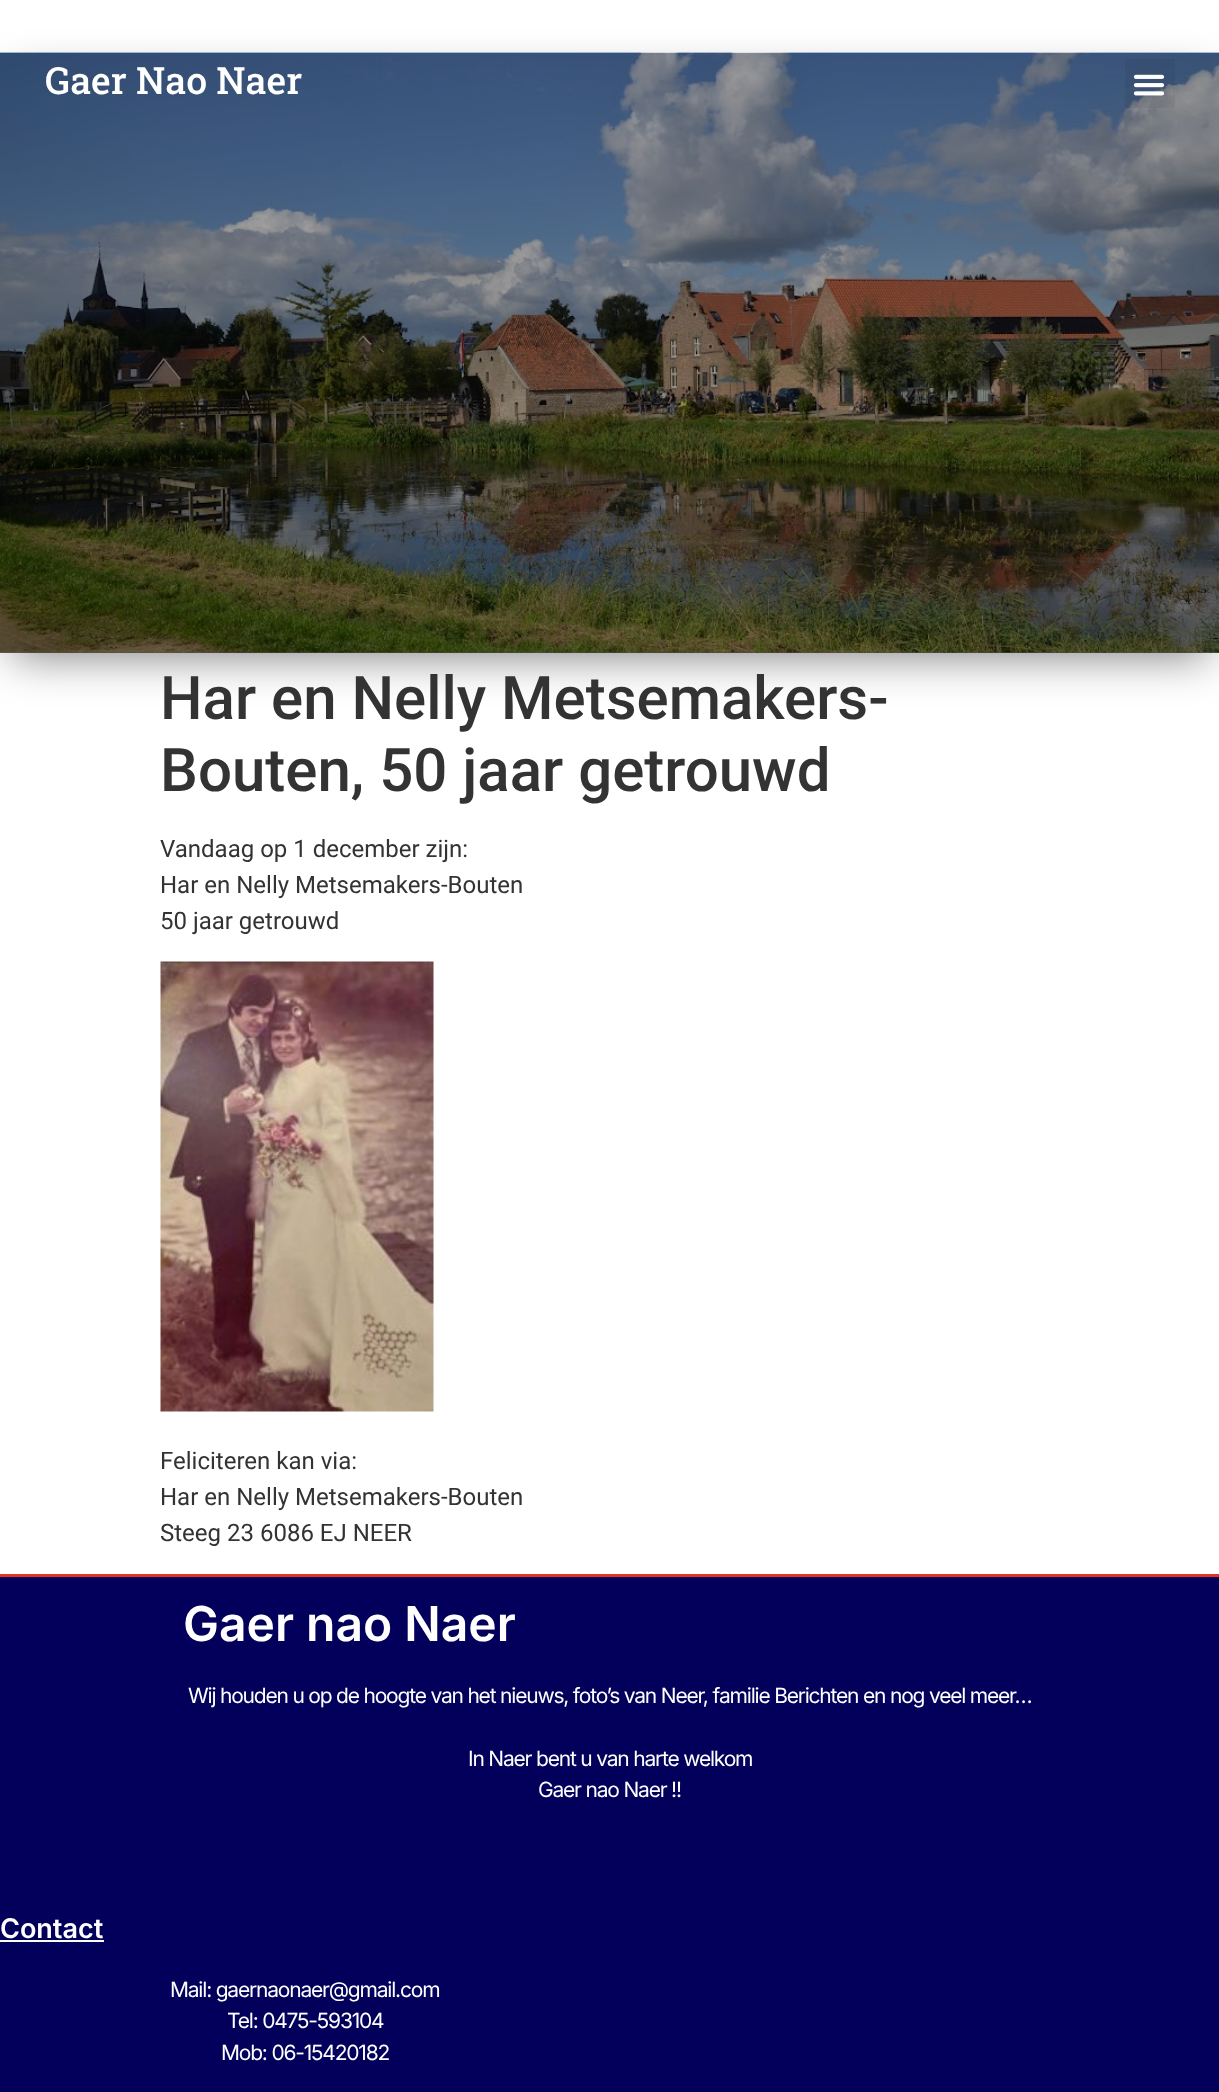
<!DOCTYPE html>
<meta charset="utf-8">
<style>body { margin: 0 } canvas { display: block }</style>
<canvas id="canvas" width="1219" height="2092"></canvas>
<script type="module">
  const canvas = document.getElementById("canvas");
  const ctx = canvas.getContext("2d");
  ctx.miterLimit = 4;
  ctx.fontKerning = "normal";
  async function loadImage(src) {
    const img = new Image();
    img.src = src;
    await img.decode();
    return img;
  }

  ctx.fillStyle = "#ffffff";
  ctx.fillRect(0, 0, 1219, 2092);
  ctx.fillStyle = "rgba(0, 0, 0, 0.5)";
  ctx.filter = "blur(22.5px)";
  ctx.beginPath();
  ctx.rect(12, 80, 1196, 576);
  ctx.fill();
  ctx.filter = "none";
  ctx.fillStyle = "rgba(0, 0, 0, 0.35)";
  ctx.fillRect(0, 652, 1219, 1);
  ctx.drawImage(await loadImage("img1.png"), 0, 52, 1219, 601);
  ctx.fillRect(0, 53, 1219, 600);
  ctx.font = "500 37.5px Roboto Slab";
  ctx.fillStyle = "#ffffff";
  ctx.fillText("Gaer Nao Naer", 45, 94);
  ctx.fillStyle = "rgba(0, 0, 0, 0.05)";
  ctx.fillRect(1125, 59, 50, 49);
  ctx.drawImage(await loadImage("img2.png"), 1133, 74, 32, 22);
  ctx.font = "500 60px Roboto";
  ctx.fillStyle = "#333333";
  ctx.fillText("Har en Nelly Metsemakers-", 160, 719);
  ctx.fillText("Bouten, 50 jaar getrouwd", 160, 791);
  ctx.font = "24px Roboto";
  ctx.fillText("Vandaag op 1 december zijn:", 160, 857);
  ctx.fillText("Har en Nelly Metsemakers-Bouten", 160, 893);
  ctx.fillText("50 jaar getrouwd", 160, 929);
  ctx.drawImage(await loadImage("img3.png"), 160, 961, 274, 451);
  ctx.fillText("Feliciteren kan via:", 160, 1469);
  ctx.fillText("Har en Nelly Metsemakers-Bouten", 160, 1505);
  ctx.fillText("Steeg 23 6086 EJ NEER", 160, 1541);
  ctx.fillStyle = "#03005c";
  ctx.fillRect(0, 1577, 1219, 515);
  ctx.fillStyle = "#e23125";
  ctx.fillRect(0, 1574, 1219, 3);
  ctx.font = "600 48px Inter";
  ctx.fillStyle = "#ffffff";
  ctx.fillText("Gaer nao Naer", 183, 1641);
  ctx.letterSpacing = "-1.2px";
  ctx.font = "21px Inter";
  ctx.fillText("Wij houden u op de hoogte van het nieuws, foto’s van Neer, f", 188, 1703);
  ctx.fillText("amilie Berichten en nog veel meer…", 719, 1703);
  ctx.fillText("In Naer bent u van harte welkom", 468, 1766);
  ctx.fillText("Gaer nao Naer !!", 538, 1797);
  ctx.letterSpacing = "0px";
  ctx.font = "600 27px Inter";
  ctx.fillText("Contact", 0, 1938);
  ctx.fillRect(0, 1940, 104, 2);
  ctx.letterSpacing = "-1.2px";
  ctx.font = "21px Inter";
  ctx.fillText("Mail: gaernaonaer@gmail.com", 170, 1997);
  ctx.fillText("Tel: 0475-593104", 227, 2028);
  ctx.fillText("Mob: 06-15420182", 221, 2060);
</script>
